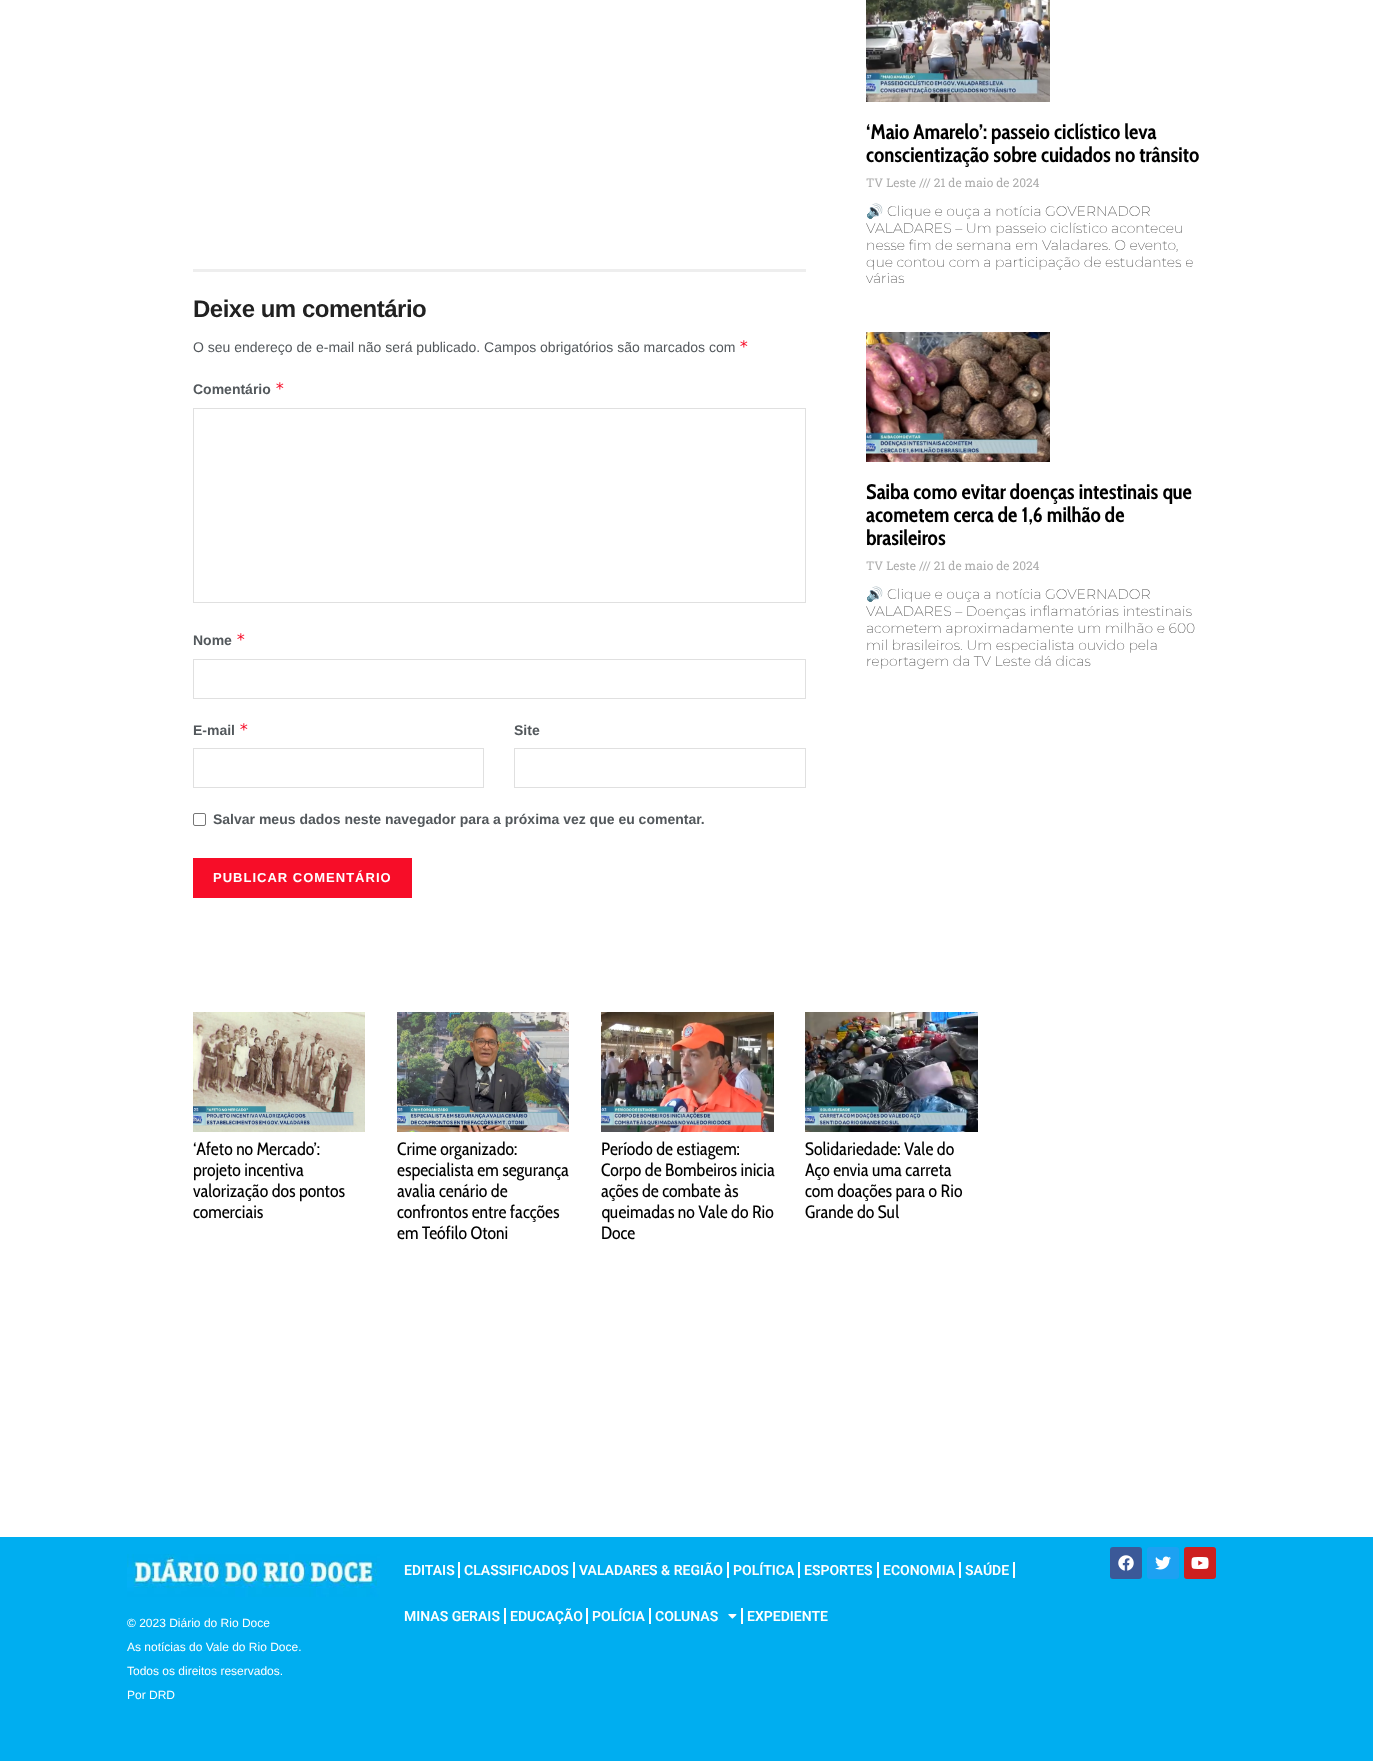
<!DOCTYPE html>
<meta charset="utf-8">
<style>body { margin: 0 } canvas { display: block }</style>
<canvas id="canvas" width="1373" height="1761"></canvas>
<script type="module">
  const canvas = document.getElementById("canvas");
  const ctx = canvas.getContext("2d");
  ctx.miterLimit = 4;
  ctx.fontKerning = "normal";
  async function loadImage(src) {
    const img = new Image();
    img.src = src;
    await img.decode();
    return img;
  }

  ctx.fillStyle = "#ffffff";
  ctx.fillRect(0, 0, 1373, 1761);
  ctx.fillStyle = "#eeeeee";
  ctx.fillRect(193, 269, 613, 3);
  ctx.letterSpacing = "-0.5px";
  ctx.font = "bold 24px Liberation Sans";
  ctx.fillStyle = "#212121";
  ctx.fillText("Deixe um comentário", 193, 317);
  ctx.letterSpacing = "0px";
  ctx.font = "14px Liberation Sans";
  ctx.fillStyle = "#53585c";
  ctx.fillText("O seu endereço de e-mail não será publicado. Campos obrigatórios são marcados com", 193, 352);
  ctx.font = "16px DejaVu Sans Mono";
  ctx.fillStyle = "#f70d28";
  ctx.fillText("*", 739, 352);
  ctx.font = "bold 14px Liberation Sans";
  ctx.fillStyle = "#53585c";
  ctx.fillText("Comentário", 193, 394);
  ctx.font = "16px DejaVu Sans Mono";
  ctx.fillStyle = "#f70d28";
  ctx.fillText("*", 275, 394);
  ctx.strokeStyle = "#e0e0e0";
  ctx.strokeRect(193.5, 408.5, 612, 194);
  ctx.font = "bold 14px Liberation Sans";
  ctx.fillStyle = "#53585c";
  ctx.fillText("Nome", 193, 645);
  ctx.font = "16px DejaVu Sans Mono";
  ctx.fillStyle = "#f70d28";
  ctx.fillText("*", 236, 645);
  ctx.strokeRect(193.5, 659.5, 612, 39);
  ctx.font = "bold 14px Liberation Sans";
  ctx.fillStyle = "#53585c";
  ctx.fillText("E-mail", 193, 735);
  ctx.font = "16px DejaVu Sans Mono";
  ctx.fillStyle = "#f70d28";
  ctx.fillText("*", 239, 735);
  ctx.strokeRect(193.5, 748.5, 290, 39);
  ctx.font = "bold 14px Liberation Sans";
  ctx.fillStyle = "#53585c";
  ctx.fillText("Site", 514, 735);
  ctx.strokeRect(514.5, 748.5, 291, 39);
  ctx.beginPath();
  ctx.roundRect(193.5, 813.5, 12, 12, 1.5);
  ctx.strokeStyle = "#767676";
  ctx.stroke();
  ctx.fillText("Salvar meus dados neste navegador para a próxima vez que eu comentar.", 213, 824);
  ctx.fillStyle = "#f70d28";
  ctx.fillRect(193, 858, 219, 40);
  ctx.letterSpacing = "1px";
  ctx.font = "bold 13px Liberation Sans";
  ctx.fillStyle = "#ffffff";
  ctx.fillText("PUBLICAR COMENTÁRIO", 213, 882);
  ctx.drawImage(await loadImage("img1.png"), 866, 0, 184, 102);
  ctx.letterSpacing = "0px";
  ctx.font = "bold 21px Cabin Condensed";
  ctx.fillStyle = "#000000";
  ctx.fillText("‘Maio Amarelo’: passeio ciclístico leva", 866, 139);
  ctx.fillText("conscientização sobre cuidados no trânsito", 866, 162);
  ctx.font = "12px Roboto Slab";
  ctx.fillStyle = "#adadad";
  ctx.fillText("TV Leste /// 21 de maio de 2024", 866, 187);
  ctx.save();
  ctx.beginPath();
  ctx.rect(866, 0, 336, 297);
  ctx.clip();
  ctx.font = "14px Noto Color Emoji";
  ctx.fillStyle = "#4a4a4a";
  ctx.fillText("🔊", 866, 216);
  ctx.restore();
  ctx.font = "200 14px Montserrat";
  ctx.fillStyle = "#4a4a4a";
  ctx.fillText("Clique e ouça a notícia GOVERNADOR", 887, 216);
  ctx.fillText("VALADARES – Um passeio ciclístico aconteceu", 866, 233);
  ctx.fillText("nesse fim de semana em Valadares. O evento,", 866, 250);
  ctx.fillText("que contou com a participação de estudantes e", 866, 267);
  ctx.fillText("várias", 866, 283);
  ctx.drawImage(await loadImage("img2.png"), 866, 332, 184, 130);
  ctx.font = "bold 21px Cabin Condensed";
  ctx.fillStyle = "#000000";
  ctx.fillText("Saiba como evitar doenças intestinais que", 866, 499);
  ctx.fillText("acometem cerca de 1,6 milhão de", 866, 522);
  ctx.fillText("brasileiros", 866, 545);
  ctx.font = "12px Roboto Slab";
  ctx.fillStyle = "#adadad";
  ctx.fillText("TV Leste /// 21 de maio de 2024", 866, 570);
  ctx.save();
  ctx.beginPath();
  ctx.rect(866, 332, 336, 348);
  ctx.clip();
  ctx.font = "14px Noto Color Emoji";
  ctx.fillStyle = "#4a4a4a";
  ctx.fillText("🔊", 866, 599);
  ctx.restore();
  ctx.font = "200 14px Montserrat";
  ctx.fillStyle = "#4a4a4a";
  ctx.fillText("Clique e ouça a notícia GOVERNADOR", 887, 599);
  ctx.fillText("VALADARES – Doenças inflamatórias intestinais", 866, 616);
  ctx.fillText("acometem aproximadamente um milhão e 600", 866, 633);
  ctx.fillText("mil brasileiros. Um especialista ouvido pela", 866, 650);
  ctx.fillText("reportagem da TV Leste dá dicas", 866, 666);
  ctx.drawImage(await loadImage("img3.png"), 193, 1012, 172, 120);
  ctx.font = "18px Cabin Condensed";
  ctx.fillStyle = "#000000";
  ctx.fillText("‘Afeto no Mercado’:", 193, 1155);
  ctx.fillText("projeto incentiva", 193, 1176);
  ctx.fillText("valorização dos pontos", 193, 1197);
  ctx.fillText("comerciais", 193, 1218);
  ctx.drawImage(await loadImage("img4.png"), 397, 1012, 172, 120);
  ctx.fillText("Crime organizado:", 397, 1155);
  ctx.fillText("especialista em segurança", 397, 1176);
  ctx.fillText("avalia cenário de", 397, 1197);
  ctx.fillText("confrontos entre facções", 397, 1218);
  ctx.fillText("em Teófilo Otoni", 397, 1239);
  ctx.drawImage(await loadImage("img5.png"), 601, 1012, 173, 120);
  ctx.fillText("Período de estiagem:", 601, 1155);
  ctx.fillText("Corpo de Bombeiros inicia", 601, 1176);
  ctx.fillText("ações de combate às", 601, 1197);
  ctx.fillText("queimadas no Vale do Rio", 601, 1218);
  ctx.fillText("Doce", 601, 1239);
  ctx.drawImage(await loadImage("img6.png"), 805, 1012, 173, 120);
  ctx.fillText("Solidariedade: Vale do", 805, 1155);
  ctx.fillText("Aço envia uma carreta", 805, 1176);
  ctx.fillText("com doações para o Rio", 805, 1197);
  ctx.fillText("Grande do Sul", 805, 1218);
  ctx.fillStyle = "#00aef0";
  ctx.fillRect(0, 1537, 1373, 224);
  ctx.font = "600 14px Roboto";
  ctx.fillStyle = "#ffffff";
  ctx.fillText("EDITAIS", 404, 1575);
  ctx.fillRect(458, 1562, 2, 16);
  ctx.fillText("CLASSIFICADOS", 464, 1575);
  ctx.fillRect(573, 1562, 2, 16);
  ctx.fillText("VALADARES & REGIÃO", 579, 1575);
  ctx.fillRect(727, 1562, 2, 16);
  ctx.fillText("POLÍTICA", 733, 1575);
  ctx.fillRect(798, 1562, 2, 16);
  ctx.fillText("ESPORTES", 804, 1575);
  ctx.fillRect(877, 1562, 2, 16);
  ctx.fillText("ECONOMIA", 883, 1575);
  ctx.fillRect(959, 1562, 2, 16);
  ctx.fillText("SAÚDE", 965, 1575);
  ctx.fillRect(1013, 1562, 2, 16);
  ctx.fillText("MINAS GERAIS", 404, 1621);
  ctx.fillRect(504, 1608, 2, 16);
  ctx.fillText("EDUCAÇÃO", 510, 1621);
  ctx.fillRect(586, 1608, 2, 16);
  ctx.fillText("POLÍCIA", 592, 1621);
  ctx.fillRect(649, 1608, 2, 16);
  ctx.fillText("COLUNAS", 655, 1621);
  ctx.drawImage(await loadImage("img7.png"), 728, 1614, 9, 5);
  ctx.fillRect(741, 1608, 2, 16);
  ctx.fillText("EXPEDIENTE", 747, 1621);
  ctx.fillStyle = "#3b5998";
  ctx.beginPath();
  ctx.roundRect(1110, 1547, 32, 32, 3);
  ctx.fill();
  ctx.drawImage(await loadImage("img8.png"), 1118, 1555, 16, 16);
  ctx.fillStyle = "#1da1f2";
  ctx.beginPath();
  ctx.roundRect(1147, 1547, 32, 32, 3);
  ctx.fill();
  ctx.drawImage(await loadImage("img9.png"), 1155, 1556, 16, 14);
  ctx.fillStyle = "#cd201f";
  ctx.beginPath();
  ctx.roundRect(1184, 1547, 32, 32, 3);
  ctx.fill();
  ctx.drawImage(await loadImage("img10.png"), 1191, 1557, 18, 12);
  ctx.drawImage(await loadImage("img11.png"), 127, 1554, 253, 43);
  ctx.font = "12px Liberation Sans";
  ctx.fillStyle = "#ffffff";
  ctx.fillText("© 2023 Diário do Rio Doce", 127, 1627);
  ctx.fillText("As notícias do Vale do Rio Doce.", 127, 1651);
  ctx.fillText("Todos os direitos reservados.", 127, 1675);
  ctx.fillText("Por DRD", 127, 1699);
</script>
